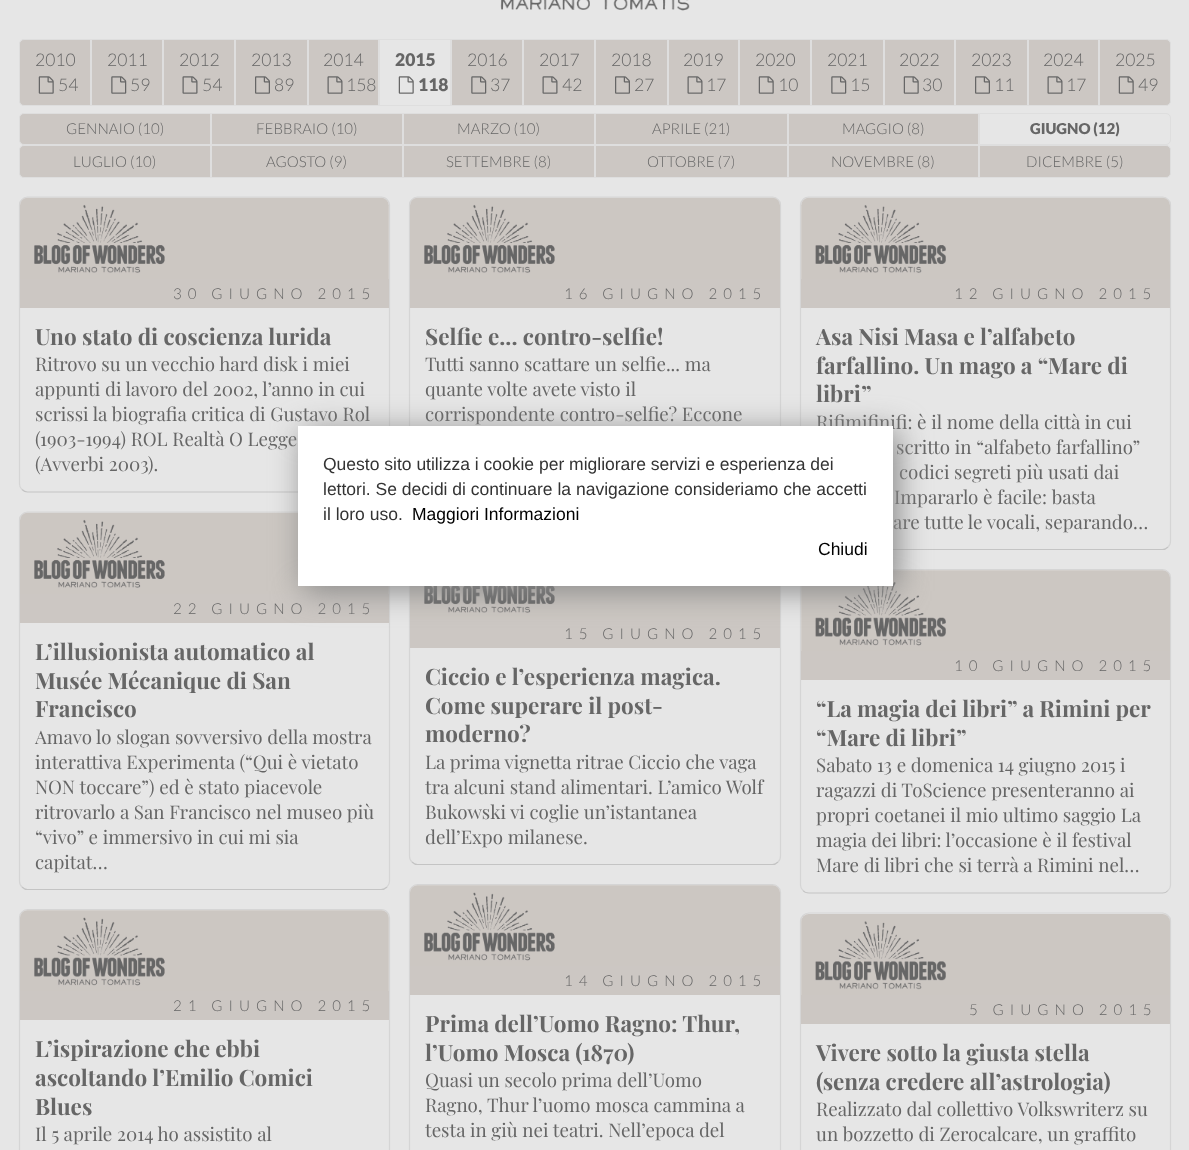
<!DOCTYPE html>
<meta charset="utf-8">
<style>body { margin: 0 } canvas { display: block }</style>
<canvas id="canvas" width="1189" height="1150"></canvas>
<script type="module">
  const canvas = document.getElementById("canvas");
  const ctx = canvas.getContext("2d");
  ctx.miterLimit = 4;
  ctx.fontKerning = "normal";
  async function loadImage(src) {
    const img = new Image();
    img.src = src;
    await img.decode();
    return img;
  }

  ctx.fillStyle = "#e6e6e6";
  ctx.fillRect(0, 0, 1189, 1150);
  ctx.drawImage(await loadImage("img1.png"), 500, 0, 190, 11);
  ctx.fillStyle = "#ccc7c3";
  ctx.beginPath();
  ctx.roundRect(19.5, 39.5, 71, 66, [4.5, 0, 0, 4.5]);
  ctx.fill();
  ctx.strokeStyle = "#dedede";
  ctx.stroke();
  ctx.font = "300 17.5px Lato";
  ctx.fillStyle = "#666666";
  ctx.fillText("2010", 35, 66);
  ctx.drawImage(await loadImage("img2.png"), 38, 76, 16, 18);
  ctx.fillText("54", 58, 91);
  ctx.fillStyle = "#ccc7c3";
  ctx.beginPath();
  ctx.rect(91.5, 39.5, 71, 66);
  ctx.fill();
  ctx.stroke();
  ctx.fillStyle = "#666666";
  ctx.fillText("2011", 107, 66);
  ctx.drawImage(await loadImage("img3.png"), 111, 76, 16, 18);
  ctx.fillText("59", 130, 91);
  ctx.fillStyle = "#ccc7c3";
  ctx.beginPath();
  ctx.rect(163.5, 39.5, 71, 66);
  ctx.fill();
  ctx.stroke();
  ctx.fillStyle = "#666666";
  ctx.fillText("2012", 179, 66);
  ctx.drawImage(await loadImage("img4.png"), 182, 76, 16, 18);
  ctx.fillText("54", 202, 91);
  ctx.fillStyle = "#ccc7c3";
  ctx.beginPath();
  ctx.rect(235.5, 39.5, 72, 66);
  ctx.fill();
  ctx.stroke();
  ctx.fillStyle = "#666666";
  ctx.fillText("2013", 251, 66);
  ctx.drawImage(await loadImage("img5.png"), 255, 76, 15, 18);
  ctx.fillText("89", 274, 91);
  ctx.fillStyle = "#ccc7c3";
  ctx.beginPath();
  ctx.rect(308.5, 39.5, 70, 66);
  ctx.fill();
  ctx.stroke();
  ctx.fillStyle = "#666666";
  ctx.fillText("2014", 323, 66);
  ctx.drawImage(await loadImage("img4.png"), 327, 76, 16, 18);
  ctx.fillText("158", 346, 91);
  ctx.strokeRect(379.5, 39.5, 71, 66);
  ctx.font = "900 17.5px Lato";
  ctx.fillText("2015", 395, 66);
  ctx.drawImage(await loadImage("img6.png"), 398, 76, 16, 18);
  ctx.fillText("118", 418, 91);
  ctx.fillStyle = "#ccc7c3";
  ctx.beginPath();
  ctx.rect(451.5, 39.5, 71, 66);
  ctx.fill();
  ctx.stroke();
  ctx.font = "300 17.5px Lato";
  ctx.fillStyle = "#666666";
  ctx.fillText("2016", 467, 66);
  ctx.drawImage(await loadImage("img3.png"), 471, 76, 16, 18);
  ctx.fillText("37", 490, 91);
  ctx.fillStyle = "#ccc7c3";
  ctx.beginPath();
  ctx.rect(523.5, 39.5, 71, 66);
  ctx.fill();
  ctx.stroke();
  ctx.fillStyle = "#666666";
  ctx.fillText("2017", 539, 66);
  ctx.drawImage(await loadImage("img4.png"), 542, 76, 16, 18);
  ctx.fillText("42", 562, 91);
  ctx.fillStyle = "#ccc7c3";
  ctx.beginPath();
  ctx.rect(595.5, 39.5, 72, 66);
  ctx.fill();
  ctx.stroke();
  ctx.fillStyle = "#666666";
  ctx.fillText("2018", 611, 66);
  ctx.drawImage(await loadImage("img5.png"), 615, 76, 15, 18);
  ctx.fillText("27", 634, 91);
  ctx.fillStyle = "#ccc7c3";
  ctx.beginPath();
  ctx.rect(668.5, 39.5, 70, 66);
  ctx.fill();
  ctx.stroke();
  ctx.fillStyle = "#666666";
  ctx.fillText("2019", 683, 66);
  ctx.drawImage(await loadImage("img4.png"), 687, 76, 16, 18);
  ctx.fillText("17", 706, 91);
  ctx.fillStyle = "#ccc7c3";
  ctx.beginPath();
  ctx.rect(739.5, 39.5, 71, 66);
  ctx.fill();
  ctx.stroke();
  ctx.fillStyle = "#666666";
  ctx.fillText("2020", 755, 66);
  ctx.drawImage(await loadImage("img2.png"), 758, 76, 16, 18);
  ctx.fillText("10", 778, 91);
  ctx.fillStyle = "#ccc7c3";
  ctx.beginPath();
  ctx.rect(811.5, 39.5, 72, 66);
  ctx.fill();
  ctx.stroke();
  ctx.fillStyle = "#666666";
  ctx.fillText("2021", 827, 66);
  ctx.drawImage(await loadImage("img3.png"), 831, 76, 16, 18);
  ctx.fillText("15", 850, 91);
  ctx.fillStyle = "#ccc7c3";
  ctx.beginPath();
  ctx.rect(884.5, 39.5, 70, 66);
  ctx.fill();
  ctx.stroke();
  ctx.fillStyle = "#666666";
  ctx.fillText("2022", 899, 66);
  ctx.drawImage(await loadImage("img2.png"), 903, 76, 16, 18);
  ctx.fillText("30", 922, 91);
  ctx.fillStyle = "#ccc7c3";
  ctx.beginPath();
  ctx.rect(955.5, 39.5, 72, 66);
  ctx.fill();
  ctx.stroke();
  ctx.fillStyle = "#666666";
  ctx.fillText("2023", 971, 66);
  ctx.drawImage(await loadImage("img5.png"), 975, 76, 15, 18);
  ctx.fillText("11", 994, 91);
  ctx.fillStyle = "#ccc7c3";
  ctx.beginPath();
  ctx.rect(1028.5, 39.5, 70, 66);
  ctx.fill();
  ctx.stroke();
  ctx.fillStyle = "#666666";
  ctx.fillText("2024", 1043, 66);
  ctx.drawImage(await loadImage("img4.png"), 1047, 76, 16, 18);
  ctx.fillText("17", 1066, 91);
  ctx.fillStyle = "#ccc7c3";
  ctx.beginPath();
  ctx.roundRect(1099.5, 39.5, 71, 66, [0, 4.5, 4.5, 0]);
  ctx.fill();
  ctx.stroke();
  ctx.fillStyle = "#666666";
  ctx.fillText("2025", 1115, 66);
  ctx.drawImage(await loadImage("img2.png"), 1118, 76, 16, 18);
  ctx.fillText("49", 1138, 91);
  ctx.fillStyle = "#ccc7c3";
  ctx.beginPath();
  ctx.roundRect(19.5, 113.5, 191, 31, [4.5, 0, 0, 4.5]);
  ctx.fill();
  ctx.stroke();
  ctx.font = "300 15px Lato";
  ctx.fillStyle = "#666666";
  ctx.fillText("GENNAIO (10)", 66, 134);
  ctx.fillStyle = "#ccc7c3";
  ctx.beginPath();
  ctx.rect(211.5, 113.5, 191, 31);
  ctx.fill();
  ctx.stroke();
  ctx.fillStyle = "#666666";
  ctx.fillText("FEBBRAIO (10)", 256, 134);
  ctx.fillStyle = "#ccc7c3";
  ctx.beginPath();
  ctx.rect(403.5, 113.5, 191, 31);
  ctx.fill();
  ctx.stroke();
  ctx.fillStyle = "#666666";
  ctx.fillText("MARZO (10)", 457, 134);
  ctx.fillStyle = "#ccc7c3";
  ctx.beginPath();
  ctx.rect(595.5, 113.5, 192, 31);
  ctx.fill();
  ctx.stroke();
  ctx.fillStyle = "#666666";
  ctx.fillText("APRILE (21)", 652, 134);
  ctx.fillStyle = "#ccc7c3";
  ctx.beginPath();
  ctx.rect(788.5, 113.5, 190, 31);
  ctx.fill();
  ctx.stroke();
  ctx.fillStyle = "#666666";
  ctx.fillText("MAGGIO (8)", 842, 134);
  ctx.beginPath();
  ctx.roundRect(979.5, 113.5, 191, 31, [0, 4.5, 4.5, 0]);
  ctx.stroke();
  ctx.font = "900 15px Lato";
  ctx.fillText("GIUGNO (12)", 1030, 134);
  ctx.fillStyle = "#ccc7c3";
  ctx.beginPath();
  ctx.roundRect(19.5, 145.5, 191, 32, [4.5, 0, 0, 4.5]);
  ctx.fill();
  ctx.stroke();
  ctx.font = "300 15px Lato";
  ctx.fillStyle = "#666666";
  ctx.fillText("LUGLIO (10)", 73, 167);
  ctx.fillStyle = "#ccc7c3";
  ctx.beginPath();
  ctx.rect(211.5, 145.5, 191, 32);
  ctx.fill();
  ctx.stroke();
  ctx.fillStyle = "#666666";
  ctx.fillText("AGOSTO (9)", 266, 167);
  ctx.fillStyle = "#ccc7c3";
  ctx.beginPath();
  ctx.rect(403.5, 145.5, 191, 32);
  ctx.fill();
  ctx.stroke();
  ctx.fillStyle = "#666666";
  ctx.fillText("SETTEMBRE (8)", 446, 167);
  ctx.fillStyle = "#ccc7c3";
  ctx.beginPath();
  ctx.rect(595.5, 145.5, 192, 32);
  ctx.fill();
  ctx.stroke();
  ctx.fillStyle = "#666666";
  ctx.fillText("OTTOBRE (7)", 647, 167);
  ctx.fillStyle = "#ccc7c3";
  ctx.beginPath();
  ctx.rect(788.5, 145.5, 190, 32);
  ctx.fill();
  ctx.stroke();
  ctx.fillStyle = "#666666";
  ctx.fillText("NOVEMBRE (8)", 831, 167);
  ctx.fillStyle = "#ccc7c3";
  ctx.beginPath();
  ctx.roundRect(979.5, 145.5, 191, 32, [0, 4.5, 4.5, 0]);
  ctx.fill();
  ctx.stroke();
  ctx.fillStyle = "#666666";
  ctx.fillText("DICEMBRE (5)", 1026, 167);
  ctx.beginPath();
  ctx.moveTo(387, 489.5);
  ctx.bezierCurveTo(385.5, 491, 383.5, 492, 381, 492);
  ctx.lineTo(27.5, 492);
  ctx.bezierCurveTo(25.5, 492, 23.5, 491, 22, 489.5);
  ctx.strokeStyle = "#c4c4c4";
  ctx.lineWidth = 1.2;
  ctx.stroke();
  ctx.beginPath();
  ctx.moveTo(22, 489.5);
  ctx.bezierCurveTo(20, 488, 19.5, 486, 19.5, 484);
  ctx.lineTo(19.5, 205);
  ctx.bezierCurveTo(19.5, 203, 20, 201, 22, 199.5);
  ctx.bezierCurveTo(23.5, 197.5, 25.5, 197, 27.5, 197);
  ctx.lineTo(381, 197);
  ctx.bezierCurveTo(383.5, 197, 385.5, 197.5, 387, 199.5);
  ctx.bezierCurveTo(388.5, 201, 389.5, 203, 389.5, 205);
  ctx.lineTo(389.5, 484);
  ctx.bezierCurveTo(389.5, 486, 388.5, 488, 387, 489.5);
  ctx.strokeStyle = "#d5d5d5";
  ctx.stroke();
  ctx.drawImage(await loadImage("img7.png"), 20, 197, 369, 82);
  ctx.fillStyle = "#ccc7c3";
  ctx.fillRect(20, 279, 369, 29);
  ctx.letterSpacing = "6px";
  ctx.fillStyle = "#666666";
  ctx.fillText("30 GIUGNO 2015", 173, 299);
  ctx.letterSpacing = "0px";
  ctx.font = "bold 22.5px Playfair Display";
  ctx.fillText("Uno stato di coscienza lurida", 35, 345);
  ctx.font = "18.75px Playfair Display";
  ctx.fillText("Ritrovo su un vecchio hard disk i miei", 35, 371);
  ctx.fillText("appunti di lavoro del 2002, l’anno in cui", 35, 396);
  ctx.fillText("scrissi la biografia critica di Gustavo Rol", 35, 421);
  ctx.fillText("(1903-1994) ROL Realtà O Legge", 35, 446);
  ctx.fillText("(Avverbi 2003).", 35, 471);
  ctx.beginPath();
  ctx.moveTo(412, 514.5);
  ctx.bezierCurveTo(410, 513, 409.5, 511, 409.5, 509);
  ctx.lineTo(409.5, 205);
  ctx.bezierCurveTo(409.5, 203, 410, 201, 412, 199.5);
  ctx.bezierCurveTo(413.5, 197.5, 415.5, 197, 417.5, 197);
  ctx.lineTo(772.5, 197);
  ctx.bezierCurveTo(774.5, 197, 776.5, 197.5, 778, 199.5);
  ctx.bezierCurveTo(780, 201, 780.5, 203, 780.5, 205);
  ctx.lineTo(780.5, 509);
  ctx.bezierCurveTo(780.5, 511, 780, 513, 778, 514.5);
  ctx.stroke();
  ctx.drawImage(await loadImage("img8.png"), 410, 197, 370, 82);
  ctx.fillStyle = "#ccc7c3";
  ctx.fillRect(410, 279, 370, 29);
  ctx.letterSpacing = "6px";
  ctx.font = "300 15px Lato";
  ctx.fillStyle = "#666666";
  ctx.fillText("16 GIUGNO 2015", 564, 299);
  ctx.letterSpacing = "0px";
  ctx.font = "bold 22.5px Playfair Display";
  ctx.fillText("Selfie e... contro-selfie!", 425, 345);
  ctx.font = "18.75px Playfair Display";
  ctx.fillText("Tutti sanno scattare un selfie... ma", 425, 371);
  ctx.fillText("quante volte avete visto il", 425, 396);
  ctx.fillText("corrispondente contro-selfie? Eccone", 425, 421);
  ctx.beginPath();
  ctx.moveTo(1168, 547);
  ctx.bezierCurveTo(1166.5, 548.5, 1164.5, 549.5, 1162.5, 549.5);
  ctx.lineTo(809, 549.5);
  ctx.bezierCurveTo(806.5, 549.5, 804.5, 548.5, 803, 547);
  ctx.strokeStyle = "#c4c4c4";
  ctx.stroke();
  ctx.beginPath();
  ctx.moveTo(803, 547);
  ctx.bezierCurveTo(801.5, 545.5, 800.5, 543.5, 800.5, 541);
  ctx.lineTo(800.5, 205);
  ctx.bezierCurveTo(800.5, 203, 801.5, 201, 803, 199.5);
  ctx.bezierCurveTo(804.5, 197.5, 806.5, 197, 809, 197);
  ctx.lineTo(1162.5, 197);
  ctx.bezierCurveTo(1164.5, 197, 1166.5, 197.5, 1168, 199.5);
  ctx.bezierCurveTo(1170, 201, 1170.5, 203, 1170.5, 205);
  ctx.lineTo(1170.5, 541);
  ctx.bezierCurveTo(1170.5, 543.5, 1170, 545.5, 1168, 547);
  ctx.strokeStyle = "#d5d5d5";
  ctx.stroke();
  ctx.drawImage(await loadImage("img9.png"), 801, 197, 369, 82);
  ctx.fillStyle = "#ccc7c3";
  ctx.fillRect(801, 279, 369, 29);
  ctx.letterSpacing = "6px";
  ctx.font = "300 15px Lato";
  ctx.fillStyle = "#666666";
  ctx.fillText("12 GIUGNO 2015", 954, 299);
  ctx.letterSpacing = "0px";
  ctx.font = "bold 22.5px Playfair Display";
  ctx.fillText("Asa Nisi Masa e l’alfabeto", 816, 345);
  ctx.fillText("farfallino. Un mago a “Mare di", 816, 374);
  ctx.fillText("libri”", 816, 402);
  ctx.font = "18.75px Playfair Display";
  ctx.fillText("Rifimifinifi: è il nome della città in cui", 816, 429);
  ctx.fillText("scritto in “alfabeto farfallino”", 896, 454);
  ctx.fillText("codici segreti più usati dai", 899, 479);
  ctx.fillText("Impararlo è facile: basta", 894, 504);
  ctx.fillText("are tutte le vocali, separando…", 893, 529);
  ctx.beginPath();
  ctx.moveTo(387, 887);
  ctx.bezierCurveTo(385.5, 888.5, 383.5, 889.5, 381, 889.5);
  ctx.lineTo(27.5, 889.5);
  ctx.bezierCurveTo(25.5, 889.5, 23.5, 888.5, 22, 887);
  ctx.strokeStyle = "#c4c4c4";
  ctx.stroke();
  ctx.beginPath();
  ctx.moveTo(22, 887);
  ctx.bezierCurveTo(20, 885.5, 19.5, 883.5, 19.5, 881);
  ctx.lineTo(19.5, 520);
  ctx.bezierCurveTo(19.5, 518, 20, 516, 22, 514.5);
  ctx.bezierCurveTo(23.5, 512.5, 25.5, 512, 27.5, 512);
  ctx.lineTo(381, 512);
  ctx.bezierCurveTo(383.5, 512, 385.5, 512.5, 387, 514.5);
  ctx.bezierCurveTo(388.5, 516, 389.5, 518, 389.5, 520);
  ctx.lineTo(389.5, 881);
  ctx.bezierCurveTo(389.5, 883.5, 388.5, 885.5, 387, 887);
  ctx.strokeStyle = "#d5d5d5";
  ctx.stroke();
  ctx.drawImage(await loadImage("img7.png"), 20, 512, 369, 82);
  ctx.fillStyle = "#ccc7c3";
  ctx.fillRect(20, 594, 369, 29);
  ctx.letterSpacing = "6px";
  ctx.font = "300 15px Lato";
  ctx.fillStyle = "#666666";
  ctx.fillText("22 GIUGNO 2015", 173, 614);
  ctx.letterSpacing = "0px";
  ctx.font = "bold 22.5px Playfair Display";
  ctx.fillText("L’illusionista automatico al", 35, 660);
  ctx.fillText("Musée Mécanique di San", 35, 689);
  ctx.fillText("Francisco", 35, 717);
  ctx.font = "18.75px Playfair Display";
  ctx.fillText("Amavo lo slogan sovversivo della mostra", 35, 744);
  ctx.fillText("interattiva Experimenta (“Qui è vietato", 35, 769);
  ctx.fillText("NON toccare”) ed è stato piacevole", 35, 794);
  ctx.fillText("ritrovarlo a San Francisco nel museo più", 35, 819);
  ctx.fillText("“vivo” e immersivo in cui mi sia", 35, 844);
  ctx.fillText("capitat…", 35, 869);
  ctx.beginPath();
  ctx.moveTo(778, 862);
  ctx.bezierCurveTo(776.5, 863.5, 774.5, 864.5, 772.5, 864.5);
  ctx.lineTo(417.5, 864.5);
  ctx.bezierCurveTo(415.5, 864.5, 413.5, 863.5, 412, 862);
  ctx.strokeStyle = "#c4c4c4";
  ctx.stroke();
  ctx.beginPath();
  ctx.moveTo(412, 862);
  ctx.bezierCurveTo(410, 860.5, 409.5, 858.5, 409.5, 856);
  ctx.lineTo(409.5, 545);
  ctx.bezierCurveTo(409.5, 543, 410, 541, 412, 539.5);
  ctx.bezierCurveTo(413.5, 537.5, 415.5, 537, 417.5, 537);
  ctx.lineTo(772.5, 537);
  ctx.bezierCurveTo(774.5, 537, 776.5, 537.5, 778, 539.5);
  ctx.bezierCurveTo(780, 541, 780.5, 543, 780.5, 545);
  ctx.lineTo(780.5, 856);
  ctx.bezierCurveTo(780.5, 858.5, 780, 860.5, 778, 862);
  ctx.strokeStyle = "#d5d5d5";
  ctx.stroke();
  ctx.drawImage(await loadImage("img10.png"), 410, 586, 370, 33);
  ctx.fillStyle = "#ccc7c3";
  ctx.fillRect(410, 619, 370, 29);
  ctx.letterSpacing = "6px";
  ctx.font = "300 15px Lato";
  ctx.fillStyle = "#666666";
  ctx.fillText("15 GIUGNO 2015", 564, 639);
  ctx.letterSpacing = "0px";
  ctx.font = "bold 22.5px Playfair Display";
  ctx.fillText("Ciccio e l’esperienza magica.", 425, 685);
  ctx.fillText("Come superare il post-", 425, 714);
  ctx.fillText("moderno?", 425, 742);
  ctx.font = "18.75px Playfair Display";
  ctx.fillText("La prima vignetta ritrae Ciccio che vaga", 425, 769);
  ctx.fillText("tra alcuni stand alimentari. L’amico Wolf", 425, 794);
  ctx.fillText("Bukowski vi coglie un’istantanea", 425, 819);
  ctx.fillText("dell’Expo milanese.", 425, 844);
  ctx.beginPath();
  ctx.moveTo(1168, 890.5);
  ctx.bezierCurveTo(1166.5, 892.5, 1164.5, 893, 1162.5, 893);
  ctx.lineTo(809, 893);
  ctx.bezierCurveTo(806.5, 893, 804.5, 892.5, 803, 890.5);
  ctx.strokeStyle = "#c4c4c4";
  ctx.stroke();
  ctx.beginPath();
  ctx.moveTo(803, 890.5);
  ctx.bezierCurveTo(801.5, 889, 800.5, 887, 800.5, 885);
  ctx.lineTo(800.5, 577.5);
  ctx.bezierCurveTo(800.5, 575.5, 801.5, 573.5, 803, 572);
  ctx.bezierCurveTo(804.5, 570, 806.5, 569.5, 809, 569.5);
  ctx.lineTo(1162.5, 569.5);
  ctx.bezierCurveTo(1164.5, 569.5, 1166.5, 570, 1168, 572);
  ctx.bezierCurveTo(1170, 573.5, 1170.5, 575.5, 1170.5, 577.5);
  ctx.lineTo(1170.5, 885);
  ctx.bezierCurveTo(1170.5, 887, 1170, 889, 1168, 890.5);
  ctx.strokeStyle = "#d5d5d5";
  ctx.stroke();
  ctx.drawImage(await loadImage("img11.png"), 801, 570, 369, 81);
  ctx.fillStyle = "#ccc7c3";
  ctx.fillRect(801, 651, 369, 29);
  ctx.letterSpacing = "6px";
  ctx.font = "300 15px Lato";
  ctx.fillStyle = "#666666";
  ctx.fillText("10 GIUGNO 2015", 954, 671);
  ctx.letterSpacing = "0px";
  ctx.font = "bold 22.5px Playfair Display";
  ctx.fillText("“La magia dei libri” a Rimini per", 816, 717);
  ctx.fillText("“Mare di libri”", 816, 746);
  ctx.font = "18.75px Playfair Display";
  ctx.fillText("Sabato 13 e domenica 14 giugno 2015 i", 816, 772);
  ctx.fillText("ragazzi di ToScience presenteranno ai", 816, 797);
  ctx.fillText("propri coetanei il mio ultimo saggio La", 816, 822);
  ctx.fillText("magia dei libri: l’occasione è il festival", 816, 847);
  ctx.fillText("Mare di libri che si terrà a Rimini nel…", 816, 872);
  ctx.beginPath();
  ctx.moveTo(22, 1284.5);
  ctx.bezierCurveTo(20, 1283, 19.5, 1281, 19.5, 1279);
  ctx.lineTo(19.5, 917.5);
  ctx.bezierCurveTo(19.5, 915.5, 20, 913.5, 22, 912);
  ctx.bezierCurveTo(23.5, 910, 25.5, 909.5, 27.5, 909.5);
  ctx.lineTo(381, 909.5);
  ctx.bezierCurveTo(383.5, 909.5, 385.5, 910, 387, 912);
  ctx.bezierCurveTo(388.5, 913.5, 389.5, 915.5, 389.5, 917.5);
  ctx.lineTo(389.5, 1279);
  ctx.bezierCurveTo(389.5, 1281, 388.5, 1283, 387, 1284.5);
  ctx.stroke();
  ctx.drawImage(await loadImage("img12.png"), 20, 910, 369, 81);
  ctx.fillStyle = "#ccc7c3";
  ctx.fillRect(20, 991, 369, 29);
  ctx.letterSpacing = "6px";
  ctx.font = "300 15px Lato";
  ctx.fillStyle = "#666666";
  ctx.fillText("21 GIUGNO 2015", 173, 1011);
  ctx.letterSpacing = "0px";
  ctx.font = "bold 22.5px Playfair Display";
  ctx.fillText("L’ispirazione che ebbi", 35, 1057);
  ctx.fillText("ascoltando l’Emilio Comici", 35, 1086);
  ctx.fillText("Blues", 35, 1115);
  ctx.font = "18.75px Playfair Display";
  ctx.fillText("Il 5 aprile 2014 ho assistito al", 35, 1141);
  ctx.beginPath();
  ctx.moveTo(412, 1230.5);
  ctx.bezierCurveTo(410, 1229, 409.5, 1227, 409.5, 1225);
  ctx.lineTo(409.5, 892.5);
  ctx.bezierCurveTo(409.5, 890.5, 410, 888.5, 412, 887);
  ctx.bezierCurveTo(413.5, 885, 415.5, 884.5, 417.5, 884.5);
  ctx.lineTo(772.5, 884.5);
  ctx.bezierCurveTo(774.5, 884.5, 776.5, 885, 778, 887);
  ctx.bezierCurveTo(780, 888.5, 780.5, 890.5, 780.5, 892.5);
  ctx.lineTo(780.5, 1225);
  ctx.bezierCurveTo(780.5, 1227, 780, 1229, 778, 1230.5);
  ctx.stroke();
  ctx.drawImage(await loadImage("img13.png"), 410, 885, 370, 81);
  ctx.fillStyle = "#ccc7c3";
  ctx.fillRect(410, 966, 370, 29);
  ctx.letterSpacing = "6px";
  ctx.font = "300 15px Lato";
  ctx.fillStyle = "#666666";
  ctx.fillText("14 GIUGNO 2015", 564, 986);
  ctx.letterSpacing = "0px";
  ctx.font = "bold 22.5px Playfair Display";
  ctx.fillText("Prima dell’Uomo Ragno: Thur,", 425, 1032);
  ctx.fillText("l’Uomo Mosca (1870)", 425, 1061);
  ctx.font = "18.75px Playfair Display";
  ctx.fillText("Quasi un secolo prima dell’Uomo", 425, 1087);
  ctx.fillText("Ragno, Thur l’uomo mosca cammina a", 425, 1112);
  ctx.fillText("testa in giù nei teatri. Nell’epoca del", 425, 1137);
  ctx.beginPath();
  ctx.moveTo(803, 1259.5);
  ctx.bezierCurveTo(801.5, 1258, 800.5, 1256, 800.5, 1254);
  ctx.lineTo(800.5, 921);
  ctx.bezierCurveTo(800.5, 919, 801.5, 917, 803, 915.5);
  ctx.bezierCurveTo(804.5, 914, 806.5, 913, 809, 913);
  ctx.lineTo(1162.5, 913);
  ctx.bezierCurveTo(1164.5, 913, 1166.5, 914, 1168, 915.5);
  ctx.bezierCurveTo(1170, 917, 1170.5, 919, 1170.5, 921);
  ctx.lineTo(1170.5, 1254);
  ctx.bezierCurveTo(1170.5, 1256, 1170, 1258, 1168, 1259.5);
  ctx.stroke();
  ctx.drawImage(await loadImage("img14.png"), 801, 914, 369, 81);
  ctx.fillStyle = "#ccc7c3";
  ctx.fillRect(801, 995, 369, 29);
  ctx.letterSpacing = "6px";
  ctx.font = "300 15px Lato";
  ctx.fillStyle = "#666666";
  ctx.fillText("5 GIUGNO 2015", 969, 1015);
  ctx.letterSpacing = "0px";
  ctx.font = "bold 22.5px Playfair Display";
  ctx.fillText("Vivere sotto la giusta stella", 816, 1061);
  ctx.fillText("(senza credere all’astrologia)", 816, 1090);
  ctx.font = "18.75px Playfair Display";
  ctx.fillText("Realizzato dal collettivo Volkswriterz su", 816, 1116);
  ctx.fillText("un bozzetto di Zerocalcare, un graffito", 816, 1141);
  ctx.fillStyle = "#888888";
  ctx.filter = "blur(15.5px)";
  ctx.beginPath();
  ctx.rect(303, 431, 595, 160);
  ctx.fill();
  ctx.filter = "none";
  ctx.fillStyle = "#ffffff";
  ctx.fillRect(298, 426, 595, 160);
  ctx.font = "17.5px Liberation Sans";
  ctx.fillStyle = "#333333";
  ctx.fillText("Questo sito utilizza i cookie per migliorare servizi e esperienza dei", 323, 470);
  ctx.fillText("lettori. Se decidi di continuare la navigazione consideriamo che accetti", 323, 495);
  ctx.fillText("il loro uso.", 323, 520);
  ctx.fillStyle = "#000000";
  ctx.fillText("Maggiori Informazioni", 412, 520);
  ctx.fillText("Chiudi", 818, 555);
</script>
